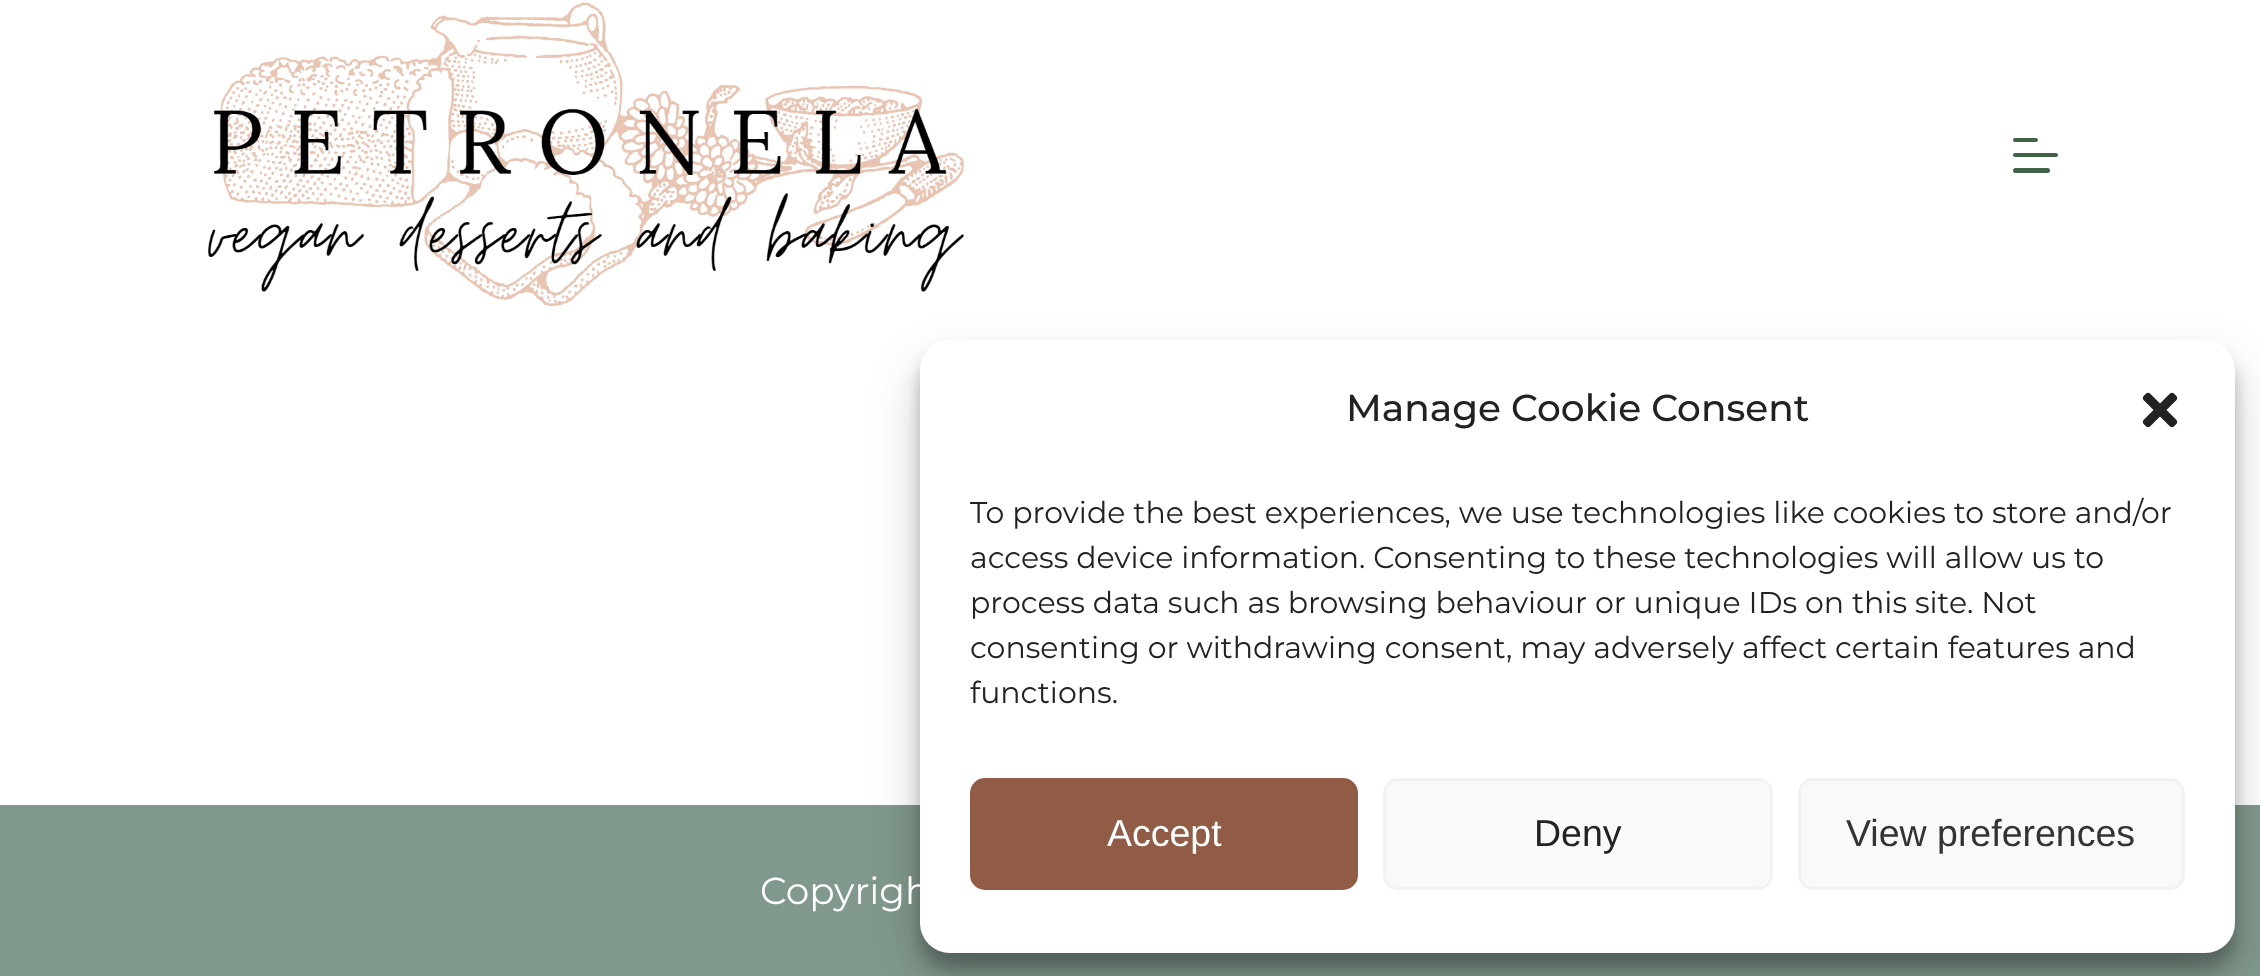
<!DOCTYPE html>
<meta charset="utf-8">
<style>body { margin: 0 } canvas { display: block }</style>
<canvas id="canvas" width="2260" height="976"></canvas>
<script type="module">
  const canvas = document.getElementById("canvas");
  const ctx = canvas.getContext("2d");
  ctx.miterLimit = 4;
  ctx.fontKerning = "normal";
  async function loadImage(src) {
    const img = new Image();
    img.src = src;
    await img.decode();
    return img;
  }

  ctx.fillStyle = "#ffffff";
  ctx.fillRect(0, 0, 2260, 976);
  ctx.fillStyle = "#81988c";
  ctx.fillRect(0, 805, 2260, 171);
  ctx.fillStyle = "rgba(0, 0, 0, 0.23)";
  ctx.filter = "blur(7.5px)";
  ctx.beginPath();
  ctx.roundRect(920, 355, 1315, 613, 30);
  ctx.fill();
  ctx.filter = "none";
  ctx.drawImage(await loadImage("img2.png"), 208, 2, 756, 305);
  ctx.fillStyle = "rgba(0, 0, 0, 0.19)";
  ctx.filter = "blur(25px)";
  ctx.beginPath();
  ctx.roundRect(920, 365, 1315, 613, 30);
  ctx.fill();
  ctx.filter = "none";
  ctx.fillStyle = "#ffffff";
  ctx.beginPath();
  ctx.roundRect(920, 340, 1315, 613, 30);
  ctx.fill();
  ctx.font = "500 37.5px Montserrat";
  ctx.fillStyle = "#222222";
  ctx.fillText("Manage Cookie Consent", 1346, 421);
  ctx.drawImage(await loadImage("img1.png"), 2142, 392, 36, 36);
  ctx.font = "30px Montserrat";
  ctx.fillText("To provide the best experiences, we use technologies like cookies to store and/or", 970, 523);
  ctx.fillText("access device information. Consenting to these technologies will allow us to", 970, 568);
  ctx.fillText("process data such as browsing behaviour or unique IDs on this site. Not", 970, 613);
  ctx.fillText("consenting or withdrawing consent, may adversely affect certain features and", 970, 658);
  ctx.fillText("functions.", 970, 703);
  ctx.fillStyle = "#915c45";
  ctx.beginPath();
  ctx.roundRect(971.5, 779.5, 385, 109, 13.5);
  ctx.fill();
  ctx.strokeStyle = "#915c45";
  ctx.lineWidth = 3;
  ctx.stroke();
  ctx.font = "37.5px Liberation Sans";
  ctx.fillStyle = "#ffffff";
  ctx.fillText("Accept", 1107, 846);
  ctx.fillStyle = "#f9f9f9";
  ctx.beginPath();
  ctx.roundRect(1384.5, 779.5, 387, 109, 13.5);
  ctx.fill();
  ctx.strokeStyle = "#f2f2f2";
  ctx.stroke();
  ctx.fillStyle = "#222222";
  ctx.fillText("Deny", 1534, 846);
  ctx.fillStyle = "#f9f9f9";
  ctx.beginPath();
  ctx.roundRect(1799.5, 779.5, 384, 109, 13.5);
  ctx.fill();
  ctx.stroke();
  ctx.fillStyle = "#333333";
  ctx.fillText("View preferences", 1846, 846);
  ctx.fillStyle = "#426247";
  ctx.beginPath();
  ctx.roundRect(2013, 138, 25, 4, 2);
  ctx.fill();
  ctx.beginPath();
  ctx.roundRect(2013, 153, 45, 4, 2);
  ctx.fill();
  ctx.beginPath();
  ctx.roundRect(2013, 168, 37, 5, 2.5);
  ctx.fill();
  ctx.font = "37.5px Montserrat";
  ctx.fillStyle = "#ffffff";
  ctx.fillText("Copyrigh", 760, 904);
</script>
